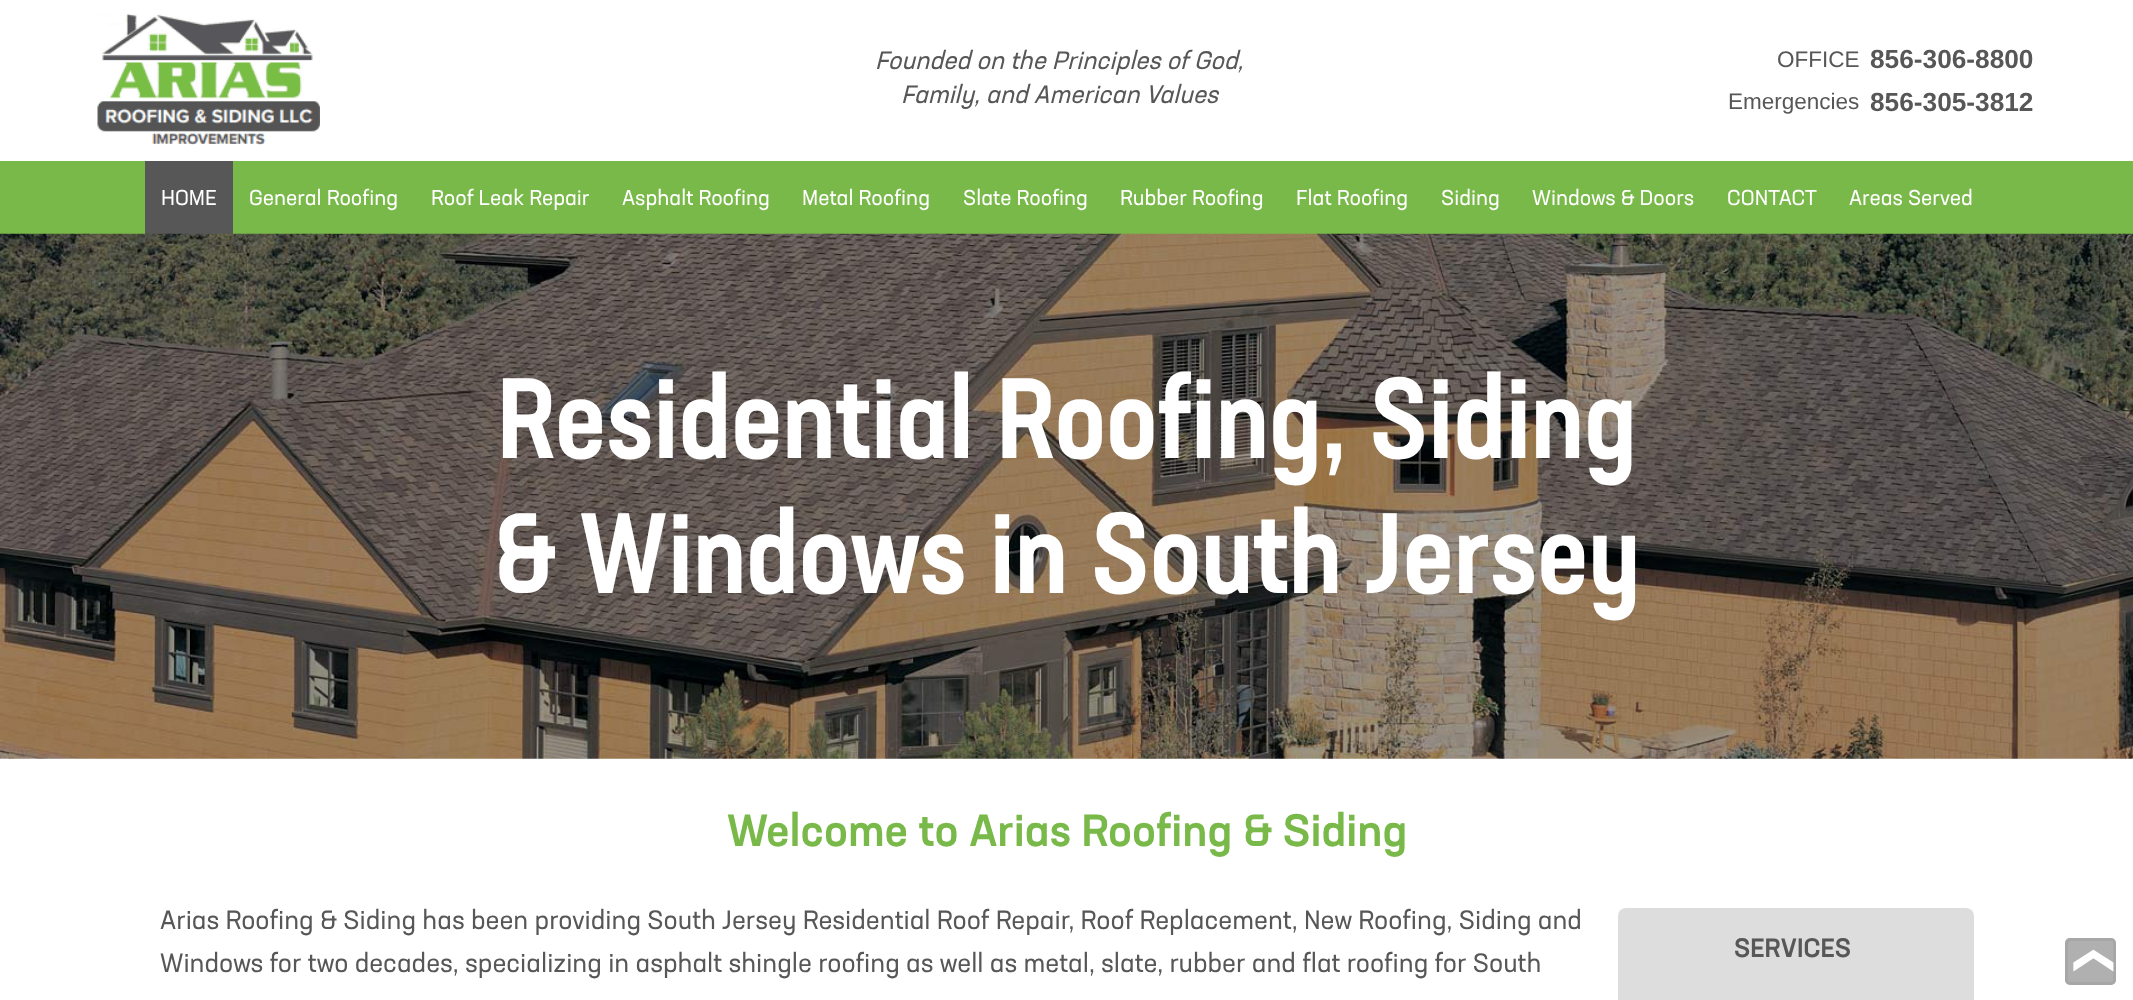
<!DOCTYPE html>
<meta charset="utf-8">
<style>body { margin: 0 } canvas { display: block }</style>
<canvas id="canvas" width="2133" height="1000"></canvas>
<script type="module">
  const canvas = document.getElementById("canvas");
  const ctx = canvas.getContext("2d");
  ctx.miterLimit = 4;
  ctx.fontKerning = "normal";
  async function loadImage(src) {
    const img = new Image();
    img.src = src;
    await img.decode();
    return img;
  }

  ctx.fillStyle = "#ffffff";
  ctx.fillRect(0, 0, 2133, 1000);
  ctx.drawImage(await loadImage("img1.png"), 97, 13, 223, 132);
  ctx.font = "italic 25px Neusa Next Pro";
  ctx.fillStyle = "#575757";
  ctx.fillText("Founded on the Principles of God,", 875, 69);
  ctx.fillText("Family, and American Values", 901, 103);
  ctx.font = "22.5px Liberation Sans";
  ctx.fillText("OFFICE", 1777, 67);
  ctx.font = "bold 26.25px Liberation Sans";
  ctx.fillText("856-306-8800", 1870, 68);
  ctx.font = "22.5px Liberation Sans";
  ctx.fillText("Emergencies", 1728, 109);
  ctx.font = "bold 26.25px Liberation Sans";
  ctx.fillText("856-305-3812", 1870, 111);
  ctx.fillStyle = "#79b949";
  ctx.fillRect(0, 161, 2133, 73);
  ctx.fillStyle = "#575757";
  ctx.fillRect(145, 161, 88, 73);
  ctx.font = "21.25px Neusa Next Pro";
  ctx.fillStyle = "#ffffff";
  ctx.fillText("HOME", 161, 205);
  ctx.fillText("General Roofing", 249, 205);
  ctx.fillText("Roof Leak Repair", 431, 205);
  ctx.fillText("Asphalt Roofing", 622, 205);
  ctx.fillText("Metal Roofing", 802, 205);
  ctx.fillText("Slate Roofing", 963, 205);
  ctx.fillText("Rubber Roofing", 1120, 205);
  ctx.fillText("Flat Roofing", 1296, 205);
  ctx.fillText("Siding", 1441, 205);
  ctx.fillText("Windows & Doors", 1532, 205);
  ctx.fillText("CONTACT", 1727, 205);
  ctx.fillText("Areas Served", 1849, 205);
  ctx.drawImage(await loadImage("img2.png"), 0, 233, 2133, 526);
  ctx.font = "500 112.5px 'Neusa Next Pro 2'";
  ctx.fillText("Residential Roofing, Siding", 497, 458);
  ctx.fillText("& Windows in South Jersey", 494, 593);
  ctx.font = "500 44.6px Neusa Next Pro";
  ctx.fillStyle = "#79b949";
  ctx.fillText("Welcome to Arias Roofing & Siding", 727, 846);
  ctx.font = "26.25px Neusa Next Pro";
  ctx.fillStyle = "#575757";
  ctx.fillText("Arias Roofing & Siding has been providing South Jersey Residential Roof Repair, Roof Replacement, New Roofing, Siding and", 160, 929);
  ctx.fillText("Windows for two decades, specializing in asphalt shingle roofing as well as metal, slate, rubber and flat roofing for South", 160, 972);
  ctx.fillStyle = "#dddddd";
  ctx.beginPath();
  ctx.roundRect(1618, 908, 356, 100, 8);
  ctx.fill();
  ctx.font = "500 26.25px Neusa Next Pro";
  ctx.fillStyle = "#575757";
  ctx.fillText("SERVICES", 1734, 957);
  ctx.fillStyle = "#b0b0b0";
  ctx.beginPath();
  ctx.roundRect(2065, 938, 51, 47, 5);
  ctx.fill();
  ctx.beginPath();
  ctx.roundRect(2066.5, 939.5, 48, 44, 3.5);
  ctx.strokeStyle = "rgba(155, 155, 155, 0.4)";
  ctx.lineWidth = 3;
  ctx.stroke();
  ctx.font = "40px DejaVu Sans";
  ctx.fillStyle = "#ffffff";
  ctx.save();
  ctx.translate(2083, 944);
  ctx.rotate(90 * Math.PI / 180);
  ctx.fillText("❮", 0, 0);
  ctx.restore();
</script>
